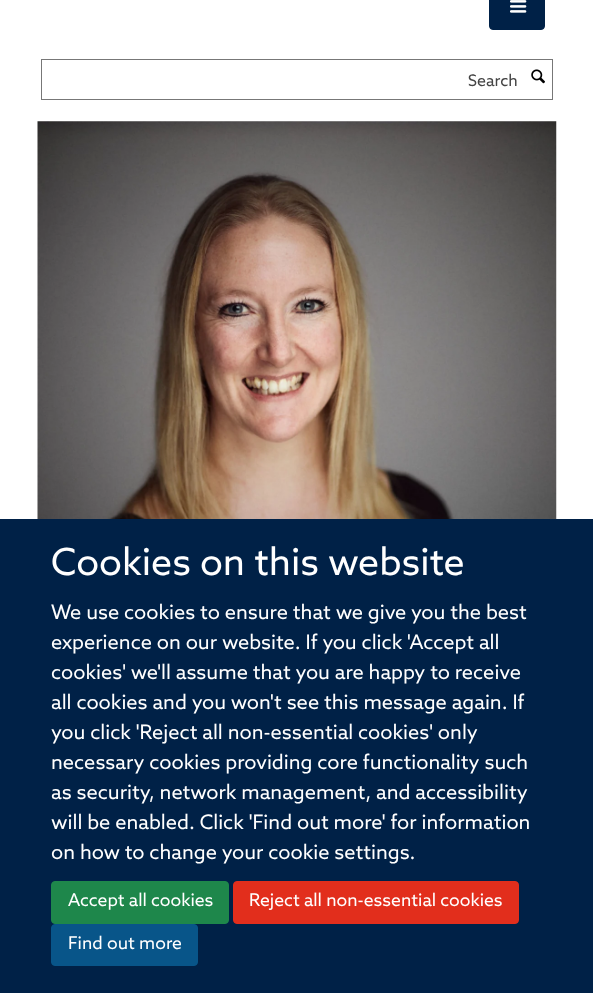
<!DOCTYPE html>
<meta charset="utf-8">
<style>body { margin: 0 } canvas { display: block }</style>
<canvas id="canvas" width="593" height="993"></canvas>
<script type="module">
  const canvas = document.getElementById("canvas");
  const ctx = canvas.getContext("2d");
  ctx.miterLimit = 4;
  ctx.fontKerning = "normal";
  async function loadImage(src) {
    const img = new Image();
    img.src = src;
    await img.decode();
    return img;
  }

  ctx.fillStyle = "#ffffff";
  ctx.fillRect(0, 0, 593, 993);
  ctx.fillStyle = "#002147";
  ctx.beginPath();
  ctx.roundRect(489.5, -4.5, 55, 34, 3.5);
  ctx.fill();
  ctx.strokeStyle = "#002147";
  ctx.stroke();
  ctx.drawImage(await loadImage("img1.png"), 510, 0, 17, 13);
  ctx.strokeStyle = "#777777";
  ctx.strokeRect(41.5, 59.5, 511, 40);
  ctx.font = "16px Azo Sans";
  ctx.fillStyle = "#444444";
  ctx.fillText("Search", 468, 86);
  ctx.drawImage(await loadImage("img2.png"), 531, 69, 14, 15);
  ctx.drawImage(await loadImage("img3.png"), 37, 121, 520, 398);
  ctx.fillStyle = "#002147";
  ctx.fillRect(0, 519, 593, 474);
  ctx.font = "37.5px Azo Sans";
  ctx.fillStyle = "#ffffff";
  ctx.fillText("Cookies on this website", 51, 575);
  ctx.font = "20px Azo Sans";
  ctx.fillText("We use cookies to ensure that we give you the best", 51, 619);
  ctx.fillText("experience on our website. If you click 'Accept all", 51, 649);
  ctx.fillText("cookies' we'll assume that you are happy to receive", 51, 679);
  ctx.fillText("all cookies and you won't see this message again. If", 51, 709);
  ctx.fillText("you click 'Reject all non-essential cookies' only", 51, 739);
  ctx.fillText("necessary cookies providing core functionality such", 51, 769);
  ctx.fillText("as security, network management, and accessibility", 51, 799);
  ctx.fillText("will be enabled. Click 'Find out more' for information", 51, 829);
  ctx.fillText("on how to change your cookie settings.", 51, 859);
  ctx.fillStyle = "#1e874b";
  ctx.beginPath();
  ctx.roundRect(51.5, 881.5, 177, 42, 3.5);
  ctx.fill();
  ctx.strokeStyle = "#1e874b";
  ctx.stroke();
  ctx.font = "17.5px Azo Sans";
  ctx.fillStyle = "#ffffff";
  ctx.fillText("Accept all cookies", 68, 906);
  ctx.fillStyle = "#e22e1c";
  ctx.beginPath();
  ctx.roundRect(233.5, 881.5, 285, 42, 3.5);
  ctx.fill();
  ctx.strokeStyle = "#e22e1c";
  ctx.stroke();
  ctx.fillStyle = "#ffffff";
  ctx.fillText("Reject all non-essential cookies", 249, 906);
  ctx.fillStyle = "#085589";
  ctx.beginPath();
  ctx.roundRect(51.5, 924.5, 146, 41, 3.5);
  ctx.fill();
  ctx.strokeStyle = "#085589";
  ctx.stroke();
  ctx.fillStyle = "#ffffff";
  ctx.fillText("Find out more", 68, 949);
</script>
